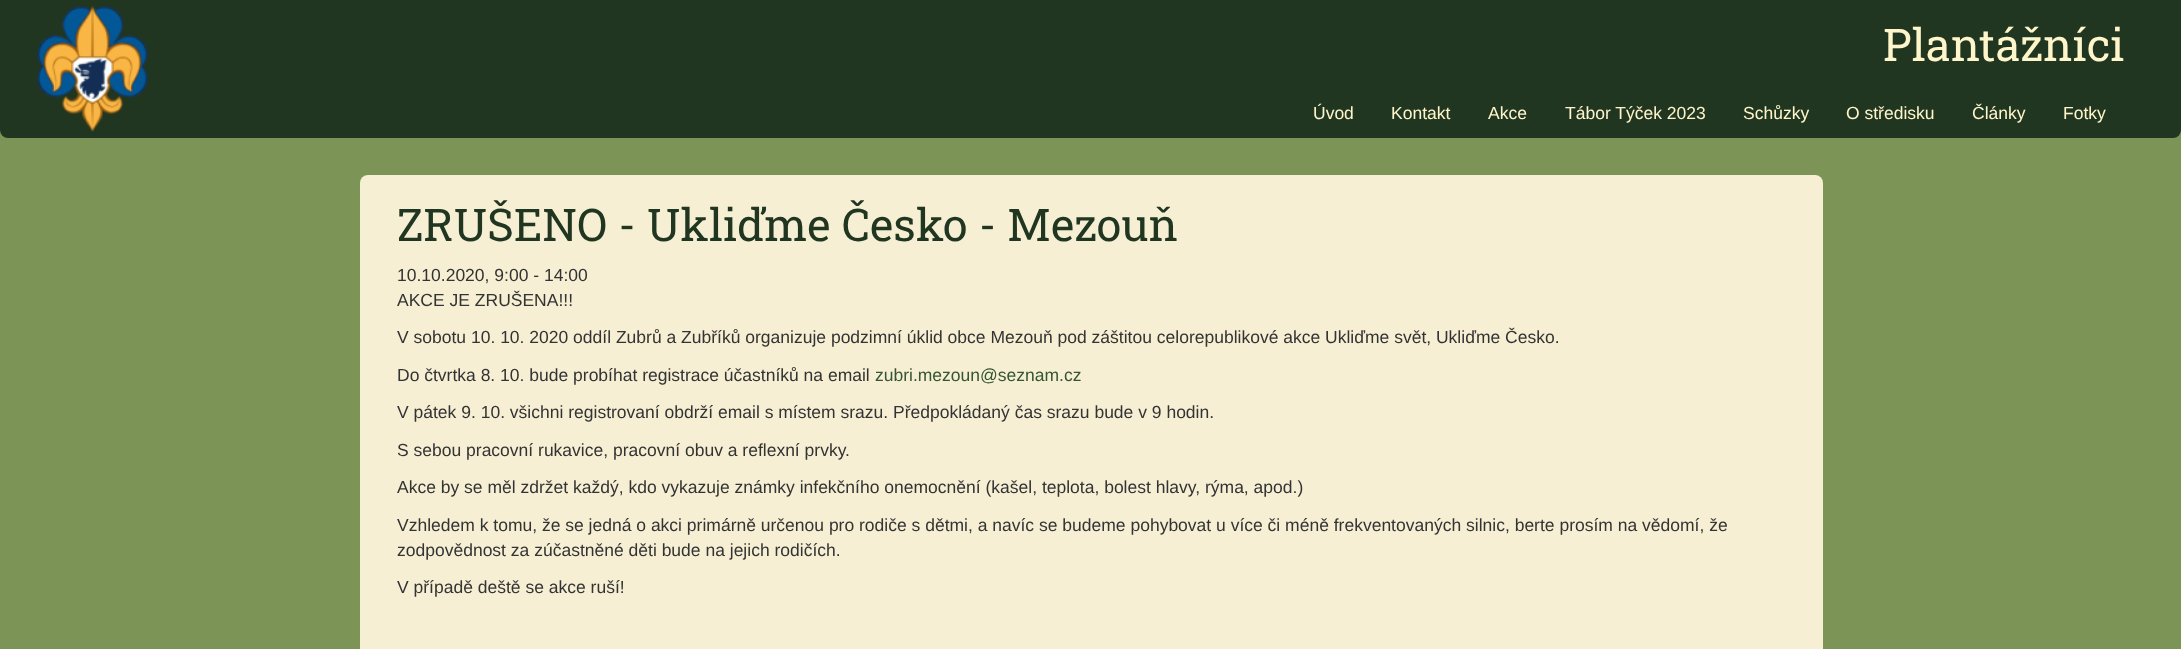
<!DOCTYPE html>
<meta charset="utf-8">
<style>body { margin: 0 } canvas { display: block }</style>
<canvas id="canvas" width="2181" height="649"></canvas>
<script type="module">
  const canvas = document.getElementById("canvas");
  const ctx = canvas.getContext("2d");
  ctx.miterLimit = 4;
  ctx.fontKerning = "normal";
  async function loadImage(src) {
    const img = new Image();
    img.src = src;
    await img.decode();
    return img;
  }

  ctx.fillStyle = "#7c9556";
  ctx.fillRect(0, 0, 2181, 649);
  ctx.fillStyle = "#213621";
  ctx.beginPath();
  ctx.roundRect(0, 0, 2181, 138, [0, 0, 8, 8]);
  ctx.fill();
  ctx.drawImage(await loadImage("img1.png"), 37, 6, 111, 126);
  ctx.font = "45px Roboto Slab";
  ctx.fillStyle = "#fff5cb";
  ctx.fillText("Plantážníci", 1883, 61);
  ctx.font = "17.5px Liberation Sans";
  ctx.fillText("Úvod", 1313, 119);
  ctx.fillText("Kontakt", 1391, 119);
  ctx.fillText("Akce", 1488, 119);
  ctx.fillText("Tábor Týček 2023", 1565, 119);
  ctx.fillText("Schůzky", 1743, 119);
  ctx.fillText("O středisku", 1846, 119);
  ctx.fillText("Články", 1972, 119);
  ctx.fillText("Fotky", 2063, 119);
  ctx.fillStyle = "#f6efd4";
  ctx.beginPath();
  ctx.roundRect(360, 175, 1463, 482, 8);
  ctx.fill();
  ctx.font = "45px Roboto Slab";
  ctx.fillStyle = "#213621";
  ctx.fillText("ZRUŠENO - Ukliďme Česko - Mezouň", 397, 241);
  ctx.font = "17.5px Liberation Sans";
  ctx.fillStyle = "#333333";
  ctx.fillText("10.10.2020, 9:00 - 14:00", 397, 281);
  ctx.fillText("AKCE JE ZRUŠENA!!!", 397, 306);
  ctx.fillText("V sobotu 10. 10. 2020 oddíl Zubrů a Zubříků organizuje podzimní úklid obce Mezouň pod záštitou celorepublikové akce Ukliďme svět, Ukliďme Česko.", 397, 343);
  ctx.fillText("Do čtvrtka 8. 10. bude probíhat registrace účastníků na email", 397, 381);
  ctx.fillStyle = "#345634";
  ctx.fillText("zubri.mezoun@seznam.cz", 875, 381);
  ctx.fillStyle = "#333333";
  ctx.fillText("V pátek 9. 10. všichni registrovaní obdrží email s místem srazu. Předpokládaný čas srazu bude v 9 hodin.", 397, 418);
  ctx.fillText("S sebou pracovní rukavice, pracovní obuv a reflexní prvky.", 397, 456);
  ctx.fillText("Akce by se měl zdržet každý, kdo vykazuje známky infekčního onemocnění (kašel, teplota, bolest hlavy, rýma, apod.)", 397, 493);
  ctx.fillText("Vzhledem k tomu, že se jedná o akci primárně určenou pro rodiče s dětmi, a navíc se budeme pohybovat u více či méně frekventovaných silnic, berte prosím na vědomí, že", 397, 531);
  ctx.fillText("zodpovědnost za zúčastněné děti bude na jejich rodičích.", 397, 556);
  ctx.fillText("V případě deště se akce ruší!", 397, 593);
</script>
